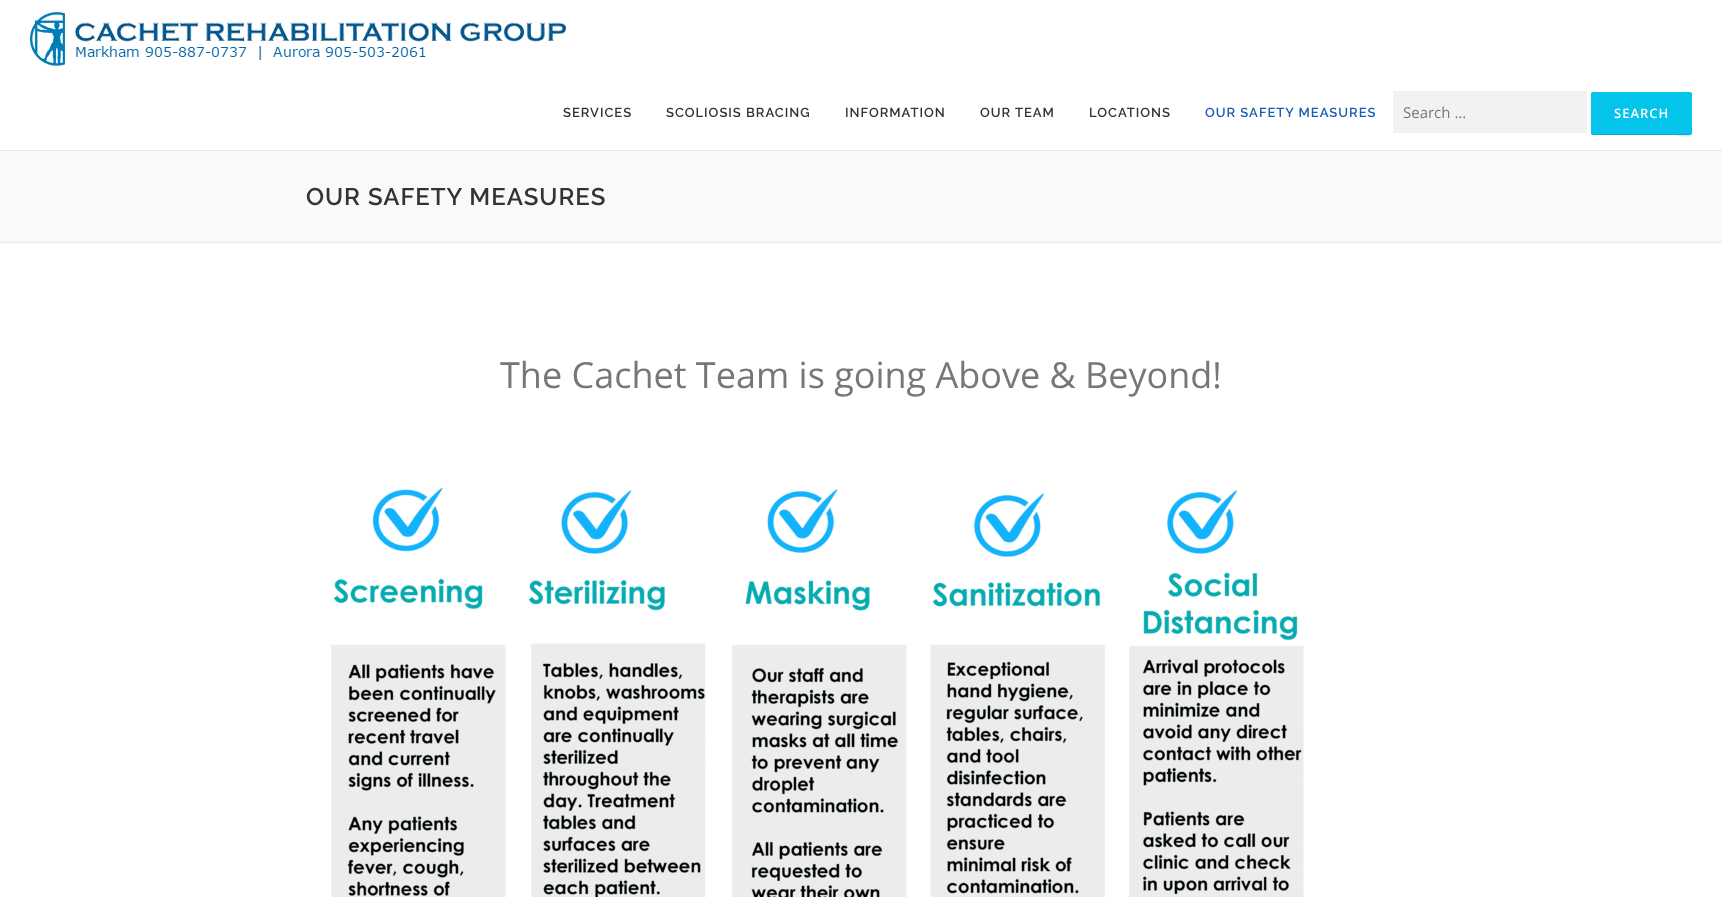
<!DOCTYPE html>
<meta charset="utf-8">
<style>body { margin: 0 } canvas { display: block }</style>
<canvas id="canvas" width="1722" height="897"></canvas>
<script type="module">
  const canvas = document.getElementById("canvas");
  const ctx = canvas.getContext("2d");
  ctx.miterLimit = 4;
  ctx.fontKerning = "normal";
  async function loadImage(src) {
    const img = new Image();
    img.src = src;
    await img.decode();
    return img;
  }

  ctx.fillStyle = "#ffffff";
  ctx.fillRect(0, 0, 1722, 897);
  ctx.drawImage(await loadImage("img1.png"), 30, 12, 537, 54);
  ctx.letterSpacing = "1px";
  ctx.font = "600 13px Raleway";
  ctx.fillStyle = "#333333";
  ctx.fillText("SERVICES", 563, 117);
  ctx.fillText("SCOLIOSIS BRACING", 666, 117);
  ctx.fillText("INFORMATION", 845, 117);
  ctx.fillText("OUR TEAM", 980, 117);
  ctx.fillText("LOCATIONS", 1089, 117);
  ctx.fillStyle = "#1b5db5";
  ctx.fillText("OUR SAFETY MEASURES", 1205, 117);
  ctx.fillStyle = "#f2f2f2";
  ctx.fillRect(1393, 91, 194, 42);
  ctx.letterSpacing = "0px";
  ctx.font = "15px Open Sans";
  ctx.fillStyle = "#777777";
  ctx.fillText("Search …", 1403, 118);
  ctx.fillStyle = "#03c4eb";
  ctx.beginPath();
  ctx.roundRect(1591, 92, 101, 43, 2);
  ctx.fill();
  ctx.fillStyle = "rgba(0, 0, 0, 0.1)";
  ctx.beginPath();
  ctx.moveTo(1591, 132);
  ctx.bezierCurveTo(1591, 133, 1591, 135, 1593, 135);
  ctx.lineTo(1674, 135);
  ctx.bezierCurveTo(1675, 135, 1692, 140, 1692, 132);
  ctx.bezierCurveTo(1692, 133, 1691, 134, 1690, 134);
  ctx.lineTo(1593, 134);
  ctx.bezierCurveTo(1592, 134, 1591, 133, 1591, 132);
  ctx.closePath();
  ctx.fill();
  ctx.letterSpacing = "1px";
  ctx.font = "600 13px Open Sans";
  ctx.fillStyle = "#ffffff";
  ctx.fillText("SEARCH", 1614, 118);
  ctx.fillStyle = "#f8f9f9";
  ctx.fillRect(0, 151, 1722, 91);
  ctx.fillStyle = "#e9e9e9";
  ctx.fillRect(0, 150, 1722, 1);
  ctx.fillRect(0, 242, 1722, 1);
  ctx.font = "600 24px Raleway";
  ctx.fillStyle = "#333333";
  ctx.fillText("OUR SAFETY MEASURES", 306, 205);
  ctx.letterSpacing = "0px";
  ctx.font = "36px Open Sans";
  ctx.fillStyle = "#777777";
  ctx.fillText("The Cachet Team is going Above & Beyond!", 500, 388);
  ctx.drawImage(await loadImage("img2.png"), 331, 487, 973, 410);
</script>
